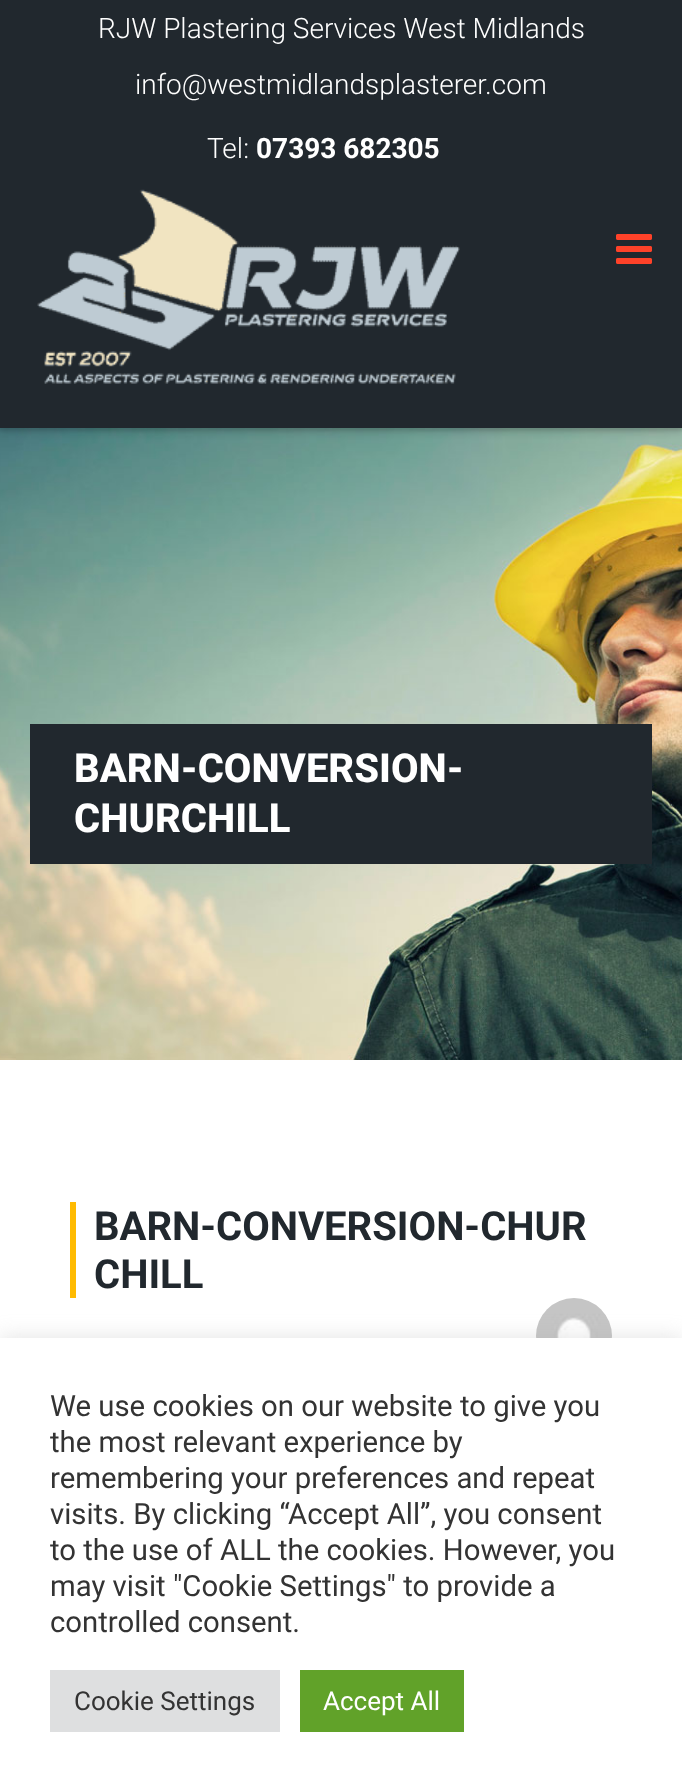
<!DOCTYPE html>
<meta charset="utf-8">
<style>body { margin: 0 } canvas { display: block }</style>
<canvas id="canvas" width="682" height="1791"></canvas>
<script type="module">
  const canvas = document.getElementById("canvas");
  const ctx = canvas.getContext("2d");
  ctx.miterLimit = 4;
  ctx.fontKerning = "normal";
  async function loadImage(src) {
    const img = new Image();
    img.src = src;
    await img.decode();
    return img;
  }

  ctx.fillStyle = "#ffffff";
  ctx.fillRect(0, 0, 682, 1791);
  ctx.drawImage(await loadImage("img3.png"), 0, 428, 682, 632);
  ctx.fillStyle = "rgba(0, 0, 0, 0.1)";
  ctx.filter = "blur(3px)";
  ctx.beginPath();
  ctx.rect(0, 6, 682, 428);
  ctx.fill();
  ctx.filter = "none";
  ctx.fillStyle = "#21282e";
  ctx.fillRect(0, 0, 682, 428);
  ctx.font = "300 28px Roboto";
  ctx.fillStyle = "#ffffff";
  ctx.fillText("RJW Plastering Services West Midlands", 98, 38);
  ctx.fillText("info@westmidlandsplasterer.com", 135, 94);
  ctx.fillText("Tel:", 207, 158);
  ctx.font = "bold 28px Roboto";
  ctx.fillText("07393 682305", 256, 158);
  ctx.drawImage(await loadImage("img1.png"), 37, 189, 423, 195);
  ctx.drawImage(await loadImage("img2.png"), 616, 234, 36, 30);
  ctx.fillStyle = "#21282e";
  ctx.fillRect(30, 724, 622, 140);
  ctx.font = "800 40px Roboto";
  ctx.fillStyle = "#ffffff";
  ctx.fillText("BARN-CONVERSION-", 74, 782);
  ctx.fillText("CHURCHILL", 74, 832);
  ctx.fillStyle = "#ffbb02";
  ctx.fillRect(70, 1202, 6, 96);
  ctx.font = "bold 40px Roboto";
  ctx.fillStyle = "#21282e";
  ctx.fillText("BARN-CONVERSION-CHUR", 94, 1240);
  ctx.fillText("CHILL", 94, 1288);
  ctx.drawImage(await loadImage("img4.png"), 536, 1298, 76, 40);
  ctx.fillStyle = "rgba(172, 171, 171, 0.3)";
  ctx.filter = "blur(10px)";
  ctx.beginPath();
  ctx.rect(0, 1336, 682, 454);
  ctx.fill();
  ctx.filter = "none";
  ctx.fillStyle = "#ffffff";
  ctx.fillRect(0, 1338, 682, 453);
  ctx.font = "29.3px Roboto";
  ctx.fillStyle = "#333333";
  ctx.fillText("We use cookies on our website to give you", 50, 1416);
  ctx.fillText("the most relevant experience by", 50, 1452);
  ctx.fillText("remembering your preferences and repeat", 50, 1488);
  ctx.fillText("visits. By clicking “Accept All”, you consent", 50, 1524);
  ctx.fillText("to the use of ALL the cookies. However, you", 50, 1560);
  ctx.fillText("may visit \"Cookie Settings\" to provide a", 50, 1596);
  ctx.fillText("controlled consent.", 50, 1632);
  ctx.fillStyle = "#dedfe0";
  ctx.fillRect(50, 1670, 230, 62);
  ctx.font = "26px Roboto";
  ctx.fillStyle = "#333333";
  ctx.fillText("Cookie Settings", 74, 1710);
  ctx.fillStyle = "#61a229";
  ctx.fillRect(300, 1670, 164, 62);
  ctx.fillStyle = "#ffffff";
  ctx.fillText("Accept All", 323, 1710);
</script>
